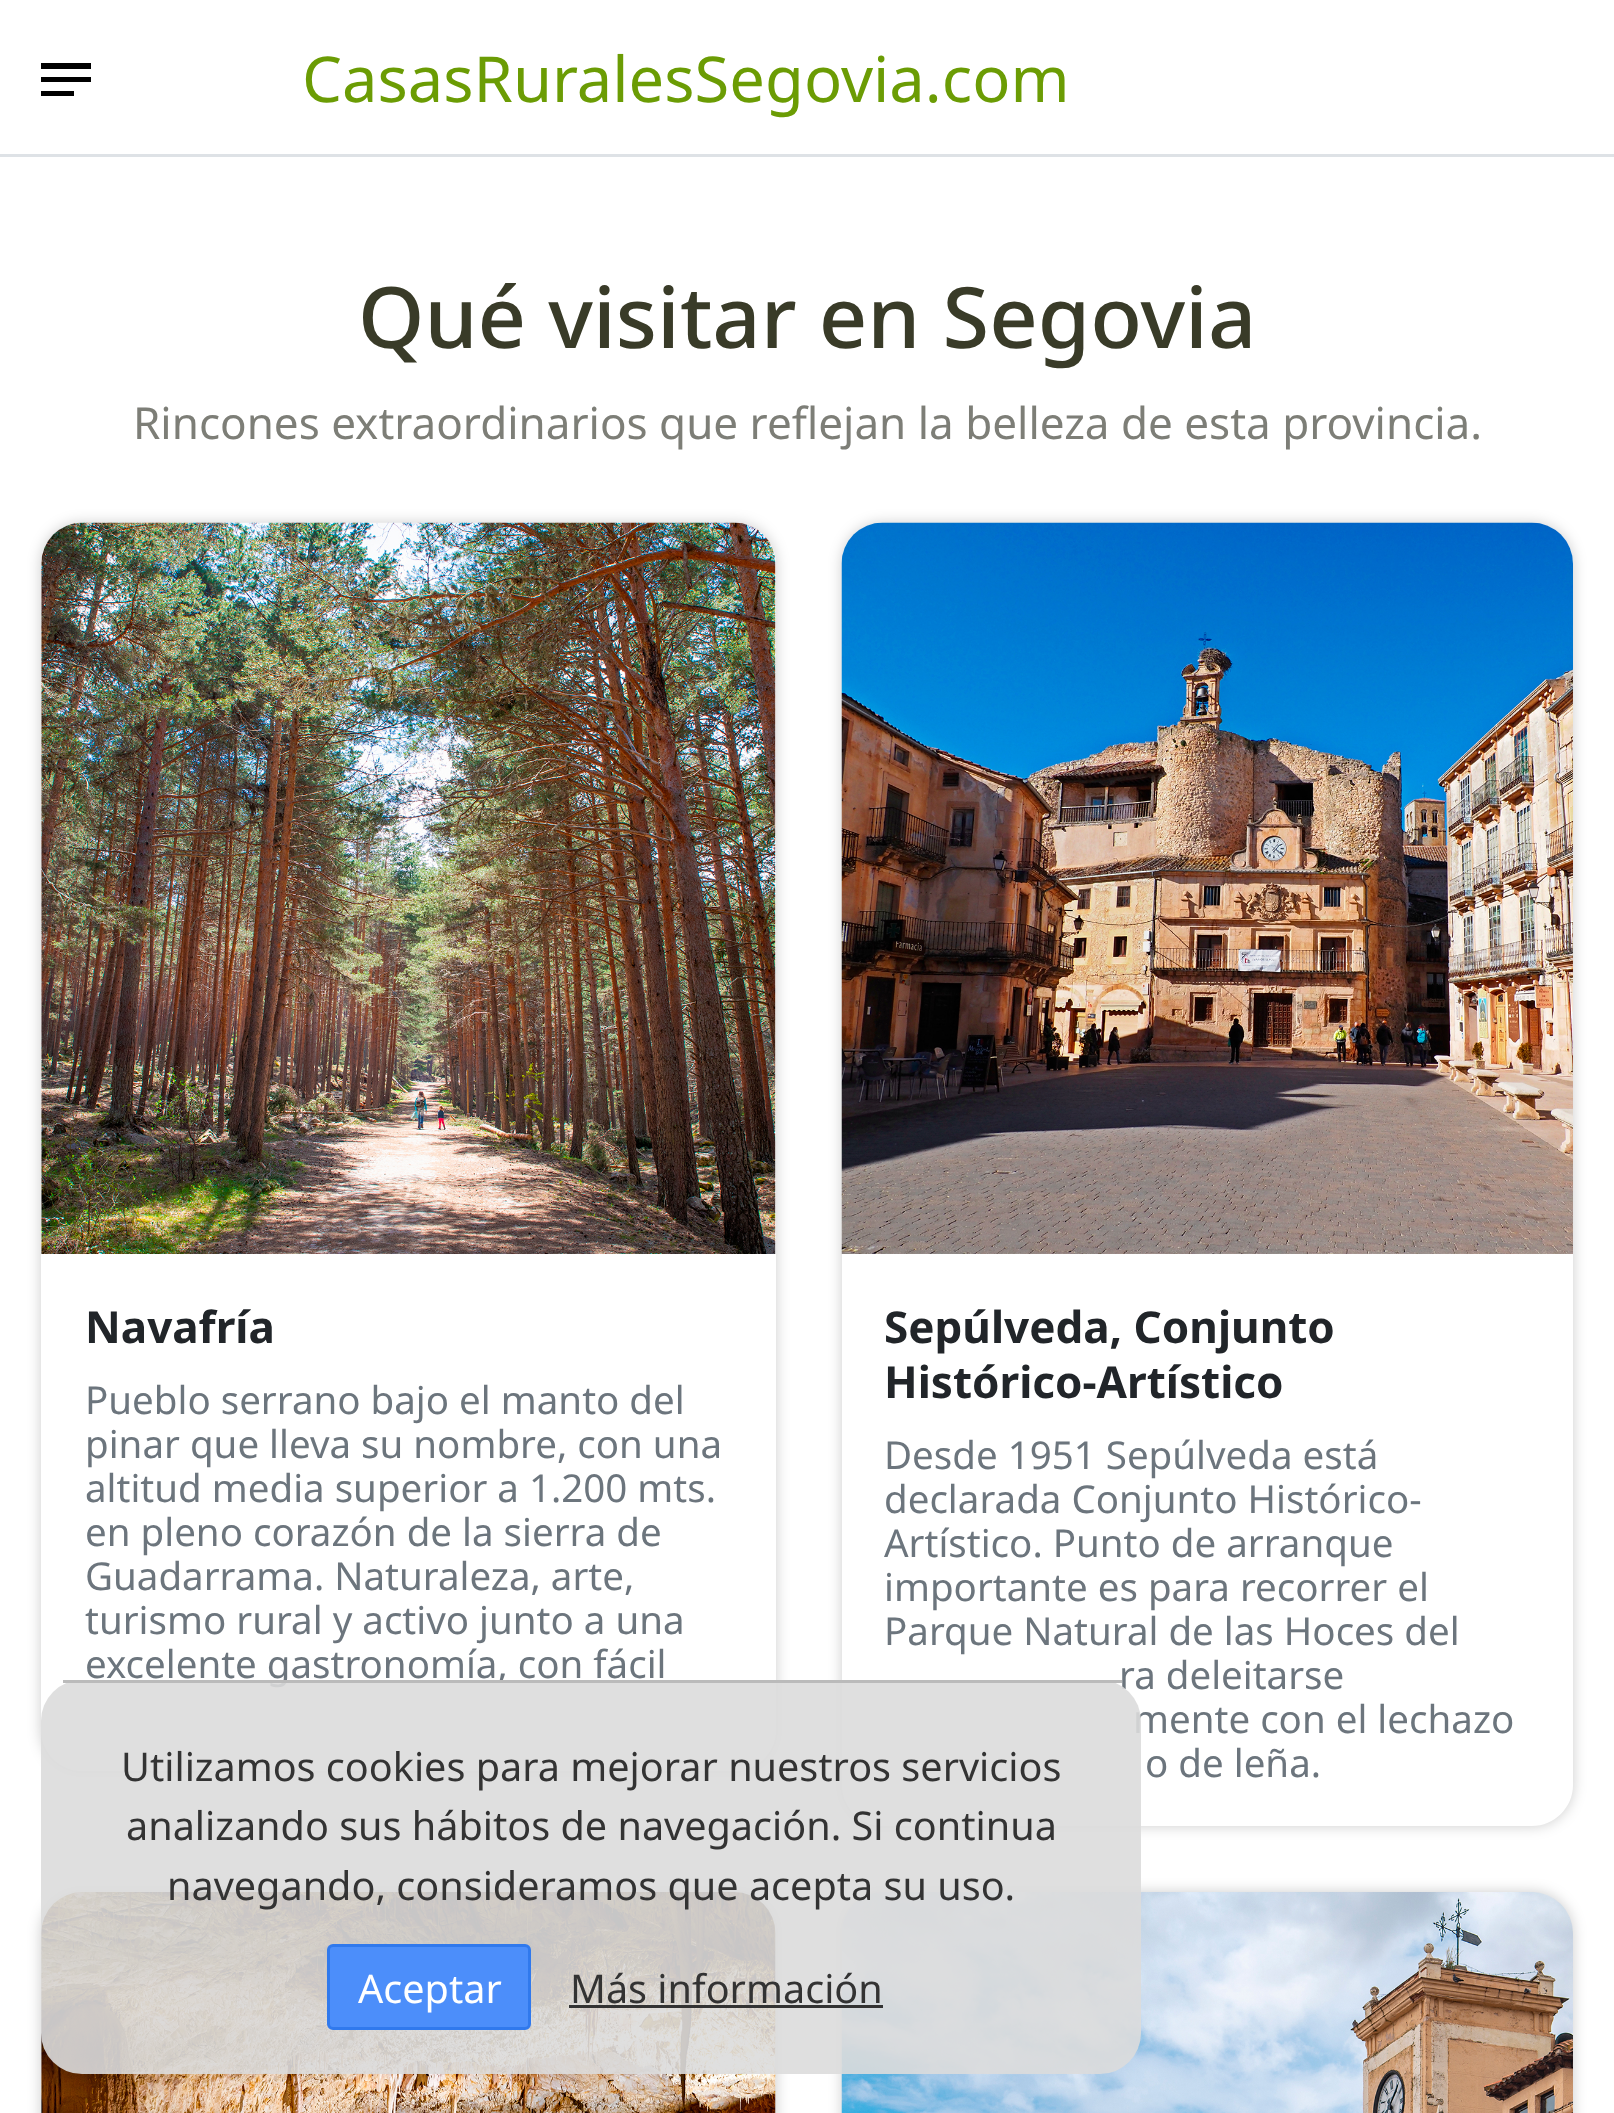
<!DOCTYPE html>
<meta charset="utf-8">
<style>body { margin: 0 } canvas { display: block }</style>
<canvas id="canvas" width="1614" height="2113"></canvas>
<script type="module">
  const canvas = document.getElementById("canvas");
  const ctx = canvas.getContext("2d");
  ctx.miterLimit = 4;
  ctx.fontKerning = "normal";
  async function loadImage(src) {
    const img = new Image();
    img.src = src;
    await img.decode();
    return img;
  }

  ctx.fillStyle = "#ffffff";
  ctx.fillRect(0, 0, 1614, 2113);
  ctx.fillStyle = "#000000";
  ctx.beginPath();
  ctx.moveTo(41, 96);
  ctx.lineTo(74, 96);
  ctx.lineTo(74, 91);
  ctx.lineTo(41, 91);
  ctx.closePath();
  ctx.moveTo(41, 63);
  ctx.lineTo(41, 69);
  ctx.lineTo(91, 69);
  ctx.lineTo(91, 63);
  ctx.closePath();
  ctx.moveTo(41, 82);
  ctx.lineTo(91, 82);
  ctx.lineTo(91, 77);
  ctx.lineTo(41, 77);
  ctx.closePath();
  ctx.fill();
  ctx.font = "63.25px Noto Sans";
  ctx.fillStyle = "#6b9c04";
  ctx.fillText("CasasRuralesSegovia.com", 302, 102);
  ctx.fillStyle = "#dee2e6";
  ctx.fillRect(0, 154, 1614, 3);
  ctx.font = "500 84.75px Noto Sans";
  ctx.fillStyle = "#393b28";
  ctx.fillText("Qué visitar en Segovia", 358, 348);
  ctx.font = "44px Noto Sans";
  ctx.fillStyle = "#7d7e77";
  ctx.fillText("Rincones extraordinarios que reflejan la belleza de esta provincia.", 133, 439);
  ctx.save();
  ctx.beginPath();
  ctx.moveTo(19, 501);
  ctx.lineTo(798, 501);
  ctx.lineTo(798, 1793);
  ctx.lineTo(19, 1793);
  ctx.closePath();
  ctx.moveTo(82, 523);
  ctx.lineTo(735, 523);
  ctx.bezierCurveTo(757.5, 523, 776, 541.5, 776, 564);
  ctx.lineTo(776, 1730);
  ctx.bezierCurveTo(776, 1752.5, 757.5, 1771, 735, 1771);
  ctx.lineTo(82, 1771);
  ctx.bezierCurveTo(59.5, 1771, 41, 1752.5, 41, 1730);
  ctx.lineTo(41, 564);
  ctx.bezierCurveTo(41, 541.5, 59.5, 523, 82, 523);
  ctx.closePath();
  ctx.clip("evenodd");
  ctx.fillStyle = "rgba(0, 0, 0, 0.2)";
  ctx.filter = "blur(7px)";
  ctx.beginPath();
  ctx.roundRect(41, 523, 735, 1248, 41);
  ctx.fill();
  ctx.filter = "none";
  ctx.restore();
  ctx.drawImage(await loadImage("img1.png"), 41, 522, 735, 732);
  ctx.font = "bold 44px Noto Sans";
  ctx.fillStyle = "#212529";
  ctx.fillText("Navafría", 85, 1343);
  ctx.font = "38.5px Noto Sans";
  ctx.fillStyle = "#6c757d";
  ctx.fillText("Pueblo serrano bajo el manto del", 85, 1414);
  ctx.fillText("pinar que lleva su nombre, con una", 85, 1458);
  ctx.fillText("altitud media superior a 1.200 mts.", 85, 1502);
  ctx.fillText("en pleno corazón de la sierra de", 85, 1546);
  ctx.fillText("Guadarrama. Naturaleza, arte,", 85, 1590);
  ctx.fillText("turismo rural y activo junto a una", 85, 1634);
  ctx.fillText("excelente gastronomía, con fácil", 85, 1678);
  ctx.save();
  ctx.beginPath();
  ctx.moveTo(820, 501);
  ctx.lineTo(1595, 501);
  ctx.lineTo(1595, 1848);
  ctx.lineTo(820, 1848);
  ctx.closePath();
  ctx.moveTo(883, 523);
  ctx.lineTo(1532, 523);
  ctx.bezierCurveTo(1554.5, 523, 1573, 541.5, 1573, 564);
  ctx.lineTo(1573, 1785);
  ctx.bezierCurveTo(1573, 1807.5, 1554.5, 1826, 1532, 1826);
  ctx.lineTo(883, 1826);
  ctx.bezierCurveTo(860.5, 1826, 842, 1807.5, 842, 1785);
  ctx.lineTo(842, 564);
  ctx.bezierCurveTo(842, 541.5, 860.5, 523, 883, 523);
  ctx.closePath();
  ctx.clip("evenodd");
  ctx.fillStyle = "rgba(0, 0, 0, 0.2)";
  ctx.filter = "blur(7px)";
  ctx.beginPath();
  ctx.roundRect(842, 523, 731, 1303, 41);
  ctx.fill();
  ctx.filter = "none";
  ctx.restore();
  ctx.drawImage(await loadImage("img2.png"), 841, 522, 732, 732);
  ctx.font = "bold 44px Noto Sans";
  ctx.fillStyle = "#212529";
  ctx.fillText("Sepúlveda, Conjunto", 884, 1343);
  ctx.fillText("Histórico-Artístico", 884, 1398);
  ctx.font = "38.5px Noto Sans";
  ctx.fillStyle = "#6c757d";
  ctx.fillText("Desde 1951 Sepúlveda está", 884, 1469);
  ctx.fillText("declarada Conjunto Histórico-", 884, 1513);
  ctx.fillText("Artístico. Punto de arranque", 884, 1557);
  ctx.fillText("importante es para recorrer el", 884, 1601);
  ctx.fillText("Parque Natural de las Hoces del", 884, 1645);
  ctx.fillText("ra deleitarse", 1119, 1689);
  ctx.fillText("mente con el lechazo", 1133, 1733);
  ctx.fillText("o de leña.", 1145, 1777);
  ctx.fillStyle = "rgba(0, 0, 0, 0.2)";
  ctx.filter = "blur(7px)";
  ctx.beginPath();
  ctx.roundRect(41, 1892, 735, 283, 41);
  ctx.fill();
  ctx.filter = "none";
  ctx.drawImage(await loadImage("img3.png"), 41, 1892, 735, 221);
  ctx.filter = "blur(7px)";
  ctx.beginPath();
  ctx.roundRect(842, 1892, 731, 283, 41);
  ctx.fill();
  ctx.filter = "none";
  ctx.drawImage(await loadImage("img4.png"), 841, 1892, 732, 221);
  ctx.fillStyle = "rgba(220, 220, 220, 0.9)";
  ctx.beginPath();
  ctx.roundRect(41, 1680, 1100, 394, 41);
  ctx.fill();
  ctx.fillStyle = "#bbbbbb";
  ctx.fillRect(63, 1680, 1059, 3);
  ctx.font = "39.6px Noto Sans";
  ctx.fillStyle = "#333333";
  ctx.fillText("Utilizamos cookies para mejorar nuestros servicios", 121, 1781);
  ctx.fillText("analizando sus hábitos de navegación. Si continua", 126, 1840);
  ctx.fillText("navegando, consideramos que acepta su uso.", 167, 1900);
  ctx.fillStyle = "#4c8efa";
  ctx.beginPath();
  ctx.roundRect(328.5, 1945.5, 201, 83, 4.5);
  ctx.fill();
  ctx.strokeStyle = "#3079ed";
  ctx.lineWidth = 3;
  ctx.stroke();
  ctx.fillStyle = "#ffffff";
  ctx.fillText("Aceptar", 358, 2003);
  ctx.fillStyle = "#333333";
  ctx.fillText("Más información", 570, 2003);
  ctx.fillRect(569, 2005, 314, 3);
</script>
